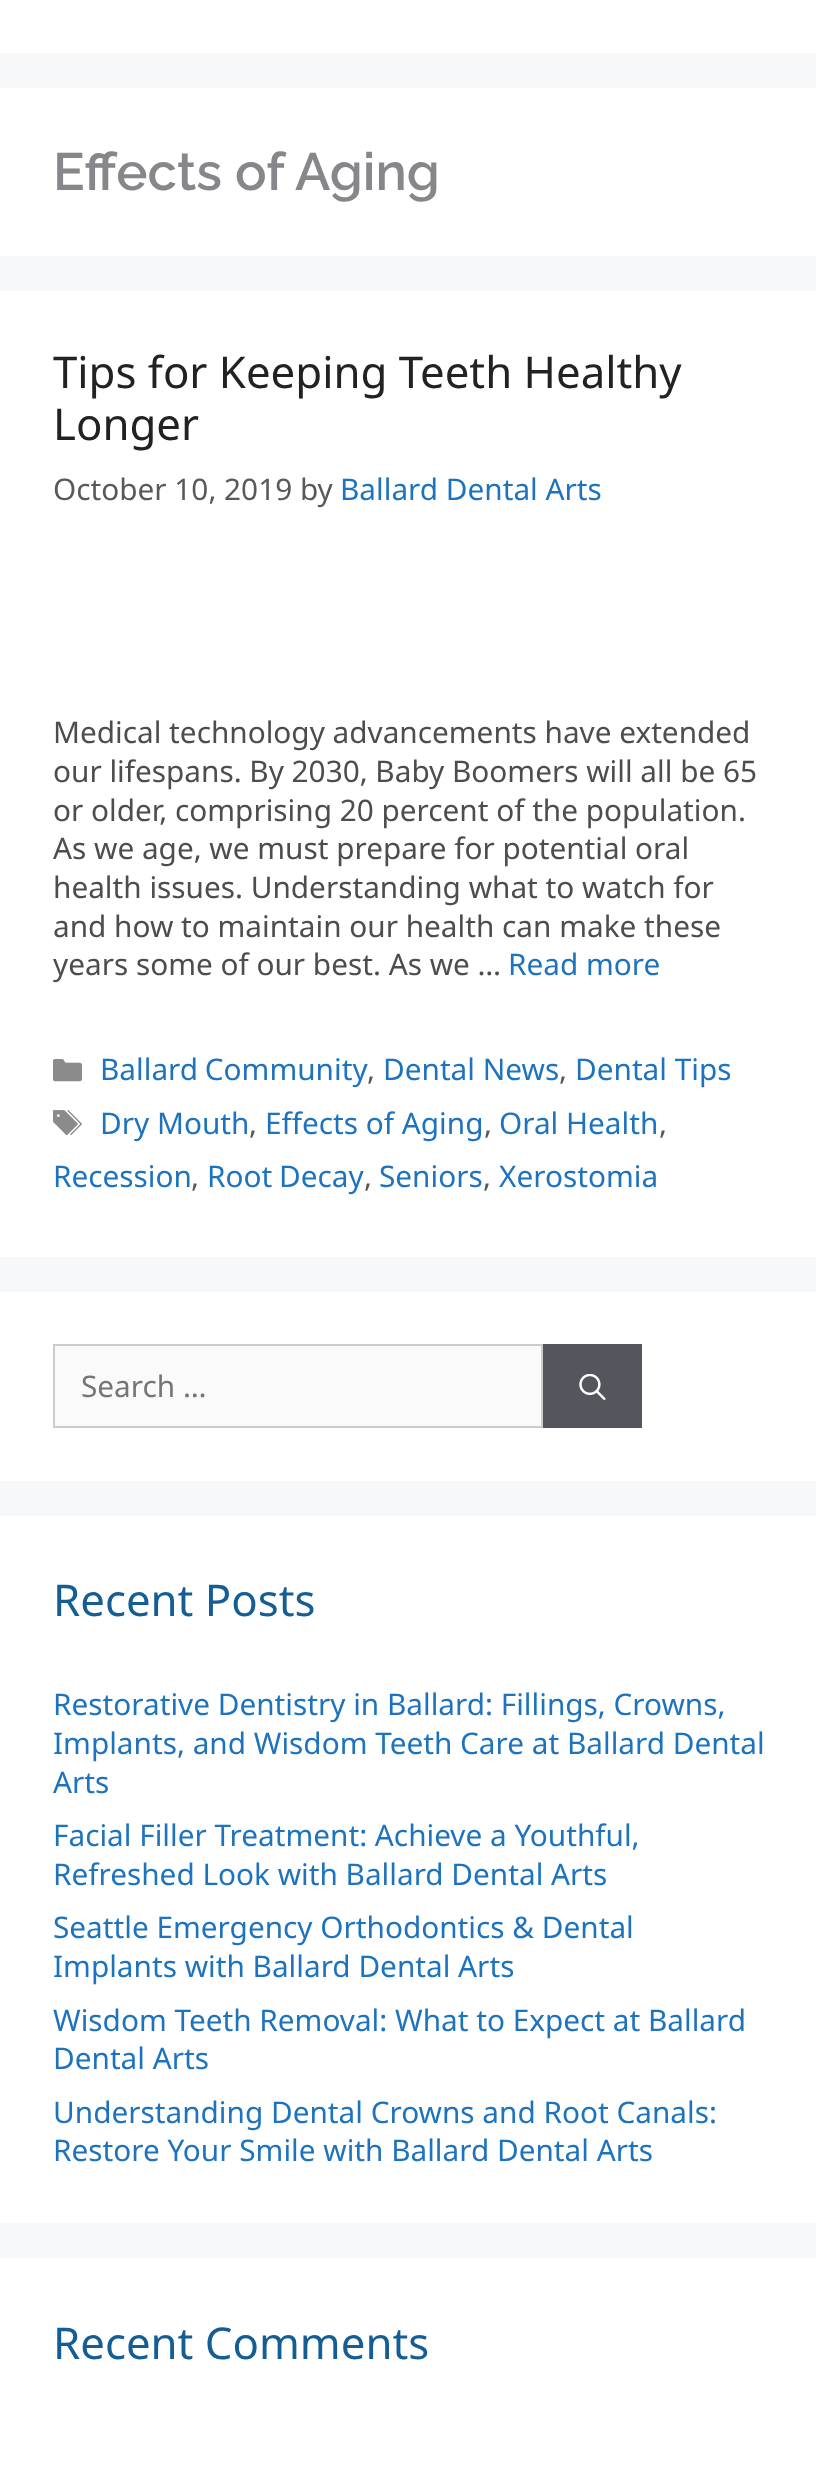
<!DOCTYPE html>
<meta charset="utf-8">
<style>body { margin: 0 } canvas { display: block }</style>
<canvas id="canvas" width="816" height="2466"></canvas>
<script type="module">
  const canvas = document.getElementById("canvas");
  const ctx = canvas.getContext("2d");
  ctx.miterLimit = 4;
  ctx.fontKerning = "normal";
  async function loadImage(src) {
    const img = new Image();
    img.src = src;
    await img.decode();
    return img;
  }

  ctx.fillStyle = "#f7f8f9";
  ctx.fillRect(0, 0, 816, 2466);
  ctx.fillStyle = "#ffffff";
  ctx.fillRect(0, 0, 816, 53);
  ctx.fillRect(0, 88, 816, 168);
  ctx.font = "600 52.5px Raleway";
  ctx.fillStyle = "#87868a";
  ctx.fillText("Effects of Aging", 53, 190);
  ctx.fillStyle = "#ffffff";
  ctx.fillRect(0, 291, 816, 966);
  ctx.font = "43.75px Noto Sans";
  ctx.fillStyle = "#222222";
  ctx.fillText("Tips for Keeping Teeth Healthy", 53, 388);
  ctx.fillText("Longer", 53, 440);
  ctx.font = "29.75px Noto Sans";
  ctx.fillStyle = "#595959";
  ctx.fillText("October 10, 2019 by", 53, 500);
  ctx.fillStyle = "#1e73be";
  ctx.fillText("Ballard Dental Arts", 340, 500);
  ctx.fillStyle = "#4d4d4d";
  ctx.fillText("Medical technology advancements have extended", 53, 743);
  ctx.fillText("our lifespans. By 2030, Baby Boomers will all be 65", 53, 782);
  ctx.fillText("or older, comprising 20 percent of the population.", 53, 821);
  ctx.fillText("As we age, we must prepare for potential oral", 53, 859);
  ctx.fillText("health issues. Understanding what to watch for", 53, 898);
  ctx.fillText("and how to maintain our health can make these", 53, 937);
  ctx.fillText("years some of our best. As we …", 53, 975);
  ctx.fillStyle = "#1e73be";
  ctx.fillText("Read more", 508, 975);
  ctx.drawImage(await loadImage("img1.png"), 53, 1059, 29, 23);
  ctx.wordSpacing = "-1px";
  ctx.fillText("Ballard Community", 100, 1080);
  ctx.wordSpacing = "0px";
  ctx.fillStyle = "#595959";
  ctx.fillText(",", 367, 1080);
  ctx.fillStyle = "#1e73be";
  ctx.fillText("Dental News", 383, 1080);
  ctx.fillStyle = "#595959";
  ctx.fillText(",", 559, 1080);
  ctx.fillStyle = "#1e73be";
  ctx.fillText("Dental Tips", 575, 1080);
  ctx.drawImage(await loadImage("img2.png"), 53, 1110, 29, 26);
  ctx.fillText("Dry Mouth", 100, 1134);
  ctx.fillStyle = "#595959";
  ctx.fillText(",", 249, 1134);
  ctx.fillStyle = "#1e73be";
  ctx.fillText("Effects of Aging", 265, 1134);
  ctx.fillStyle = "#595959";
  ctx.fillText(",", 484, 1134);
  ctx.fillStyle = "#1e73be";
  ctx.fillText("Oral Health", 499, 1134);
  ctx.fillStyle = "#595959";
  ctx.fillText(",", 659, 1134);
  ctx.fillStyle = "#1e73be";
  ctx.fillText("Recession", 53, 1187);
  ctx.fillStyle = "#595959";
  ctx.fillText(",", 191, 1187);
  ctx.wordSpacing = "-1px";
  ctx.fillStyle = "#1e73be";
  ctx.fillText("Root Decay", 207, 1187);
  ctx.wordSpacing = "0px";
  ctx.fillStyle = "#595959";
  ctx.fillText(",", 364, 1187);
  ctx.fillStyle = "#1e73be";
  ctx.fillText("Seniors", 379, 1187);
  ctx.fillStyle = "#595959";
  ctx.fillText(",", 483, 1187);
  ctx.fillStyle = "#1e73be";
  ctx.fillText("Xerostomia", 499, 1187);
  ctx.fillStyle = "#ffffff";
  ctx.fillRect(0, 1292, 816, 189);
  ctx.fillStyle = "#fafafa";
  ctx.beginPath();
  ctx.rect(54, 1345, 488, 82);
  ctx.fill();
  ctx.strokeStyle = "#cccccc";
  ctx.lineWidth = 2;
  ctx.stroke();
  ctx.fillStyle = "#757575";
  ctx.fillText("Search …", 81, 1397);
  ctx.fillStyle = "#55555e";
  ctx.fillRect(543, 1344, 99, 84);
  ctx.drawImage(await loadImage("img3.png"), 579, 1374, 27, 26);
  ctx.fillStyle = "#ffffff";
  ctx.fillRect(0, 1516, 816, 707);
  ctx.font = "43.75px Noto Sans";
  ctx.fillStyle = "#145e95";
  ctx.fillText("Recent Posts", 53, 1616);
  ctx.font = "29.75px Noto Sans";
  ctx.fillStyle = "#1e73be";
  ctx.fillText("Restorative Dentistry in Ballard: Fillings, Crowns,", 53, 1715);
  ctx.fillText("Implants, and Wisdom Teeth Care at Ballard Dental", 53, 1754);
  ctx.fillText("Arts", 53, 1793);
  ctx.fillText("Facial Filler Treatment: Achieve a Youthful,", 53, 1846);
  ctx.fillText("Refreshed Look with Ballard Dental Arts", 53, 1885);
  ctx.fillText("Seattle Emergency Orthodontics & Dental", 53, 1938);
  ctx.fillText("Implants with Ballard Dental Arts", 53, 1977);
  ctx.fillText("Wisdom Teeth Removal: What to Expect at Ballard", 53, 2031);
  ctx.fillText("Dental Arts", 53, 2069);
  ctx.fillText("Understanding Dental Crowns and Root Canals:", 53, 2123);
  ctx.fillText("Restore Your Smile with Ballard Dental Arts", 53, 2161);
  ctx.fillStyle = "#ffffff";
  ctx.fillRect(0, 2258, 816, 208);
  ctx.font = "43.75px Noto Sans";
  ctx.fillStyle = "#145e95";
  ctx.fillText("Recent Comments", 53, 2359);
</script>
